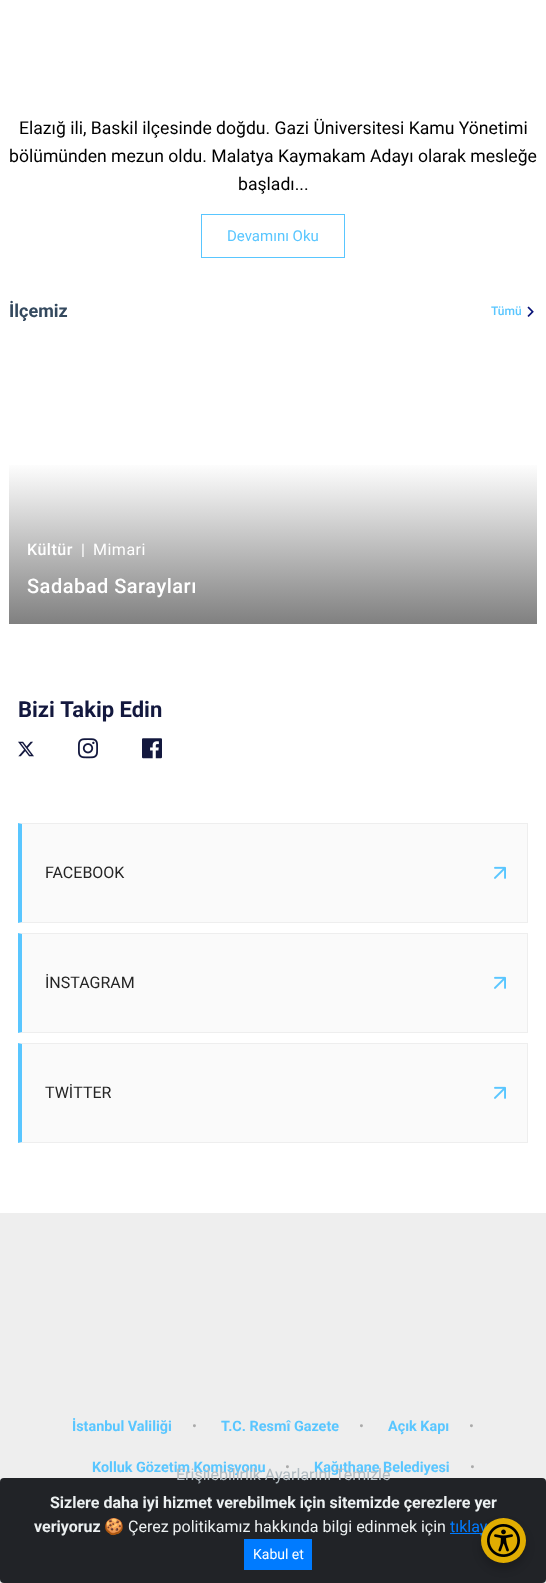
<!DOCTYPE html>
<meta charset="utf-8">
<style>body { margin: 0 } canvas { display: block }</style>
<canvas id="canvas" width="546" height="1583"></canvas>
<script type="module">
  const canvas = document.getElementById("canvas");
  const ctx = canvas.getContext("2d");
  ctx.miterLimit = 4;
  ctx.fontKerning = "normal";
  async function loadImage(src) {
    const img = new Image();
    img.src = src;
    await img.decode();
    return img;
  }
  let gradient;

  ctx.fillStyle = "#ffffff";
  ctx.fillRect(0, 0, 546, 1583);
  ctx.font = "17.6px Roboto";
  ctx.fillStyle = "#000000";
  ctx.fillText("Elazığ ili, Baskil ilçesinde doğdu. Gazi Üniversitesi Kamu Yönetimi", 19, 134);
  ctx.fillText("bölümünden mezun oldu. Malatya Kaymakam Adayı olarak mesleğe", 9, 162);
  ctx.fillText("başladı...", 238, 190);
  ctx.strokeStyle = "#59c6ff";
  ctx.strokeRect(201.5, 214.5, 143, 43);
  ctx.font = "15px Roboto";
  ctx.fillStyle = "#59c6ff";
  ctx.fillText("Devamını Oku", 227, 241);
  ctx.font = "bold 18px Roboto";
  ctx.fillStyle = "#34495e";
  ctx.fillText("İlçemiz", 9, 317);
  ctx.font = "500 12px Roboto";
  ctx.fillStyle = "#59c6ff";
  ctx.fillText("Tümü", 491, 315);
  ctx.drawImage(await loadImage("img1.png"), 527, 306, 7, 11);
  gradient = ctx.createLinearGradient(273, 462, 273, 624);
  gradient.addColorStop(0, "#ffffff");
  gradient.addColorStop(0.25, "#e1e1e1");
  gradient.addColorStop(1, "#808080");
  ctx.fillStyle = gradient;
  ctx.fillRect(9, 465, 528, 159);
  ctx.letterSpacing = "0.5px";
  ctx.font = "500 16px Roboto";
  ctx.fillStyle = "#ffffff";
  ctx.fillText("Kültür", 27, 555);
  ctx.font = "16px Roboto";
  ctx.fillText("|", 81, 555);
  ctx.fillText("Mimari", 93, 555);
  ctx.font = "500 20px Roboto";
  ctx.fillText("Sadabad Sarayları", 27, 593);
  ctx.letterSpacing = "0px";
  ctx.font = "bold 22px Roboto";
  ctx.fillStyle = "#13183e";
  ctx.fillText("Bizi Takip Edin", 18, 717);
  ctx.drawImage(await loadImage("img2.png"), 18, 741, 16, 16);
  ctx.drawImage(await loadImage("img3.png"), 78, 738, 20, 21);
  ctx.drawImage(await loadImage("img4.png"), 142, 738, 20, 21);
  ctx.fillStyle = "#fafafa";
  ctx.fillRect(22, 824, 505, 98);
  ctx.fillStyle = "#eeeeee";
  ctx.beginPath();
  ctx.moveTo(18, 823);
  ctx.lineTo(528, 823);
  ctx.lineTo(527, 824);
  ctx.lineTo(22, 824);
  ctx.closePath();
  ctx.fill();
  ctx.fillRect(527, 823, 1, 100);
  ctx.beginPath();
  ctx.moveTo(528, 923);
  ctx.lineTo(18, 923);
  ctx.lineTo(22, 922);
  ctx.lineTo(527, 922);
  ctx.closePath();
  ctx.fill();
  ctx.fillStyle = "#59c6ff";
  ctx.beginPath();
  ctx.moveTo(18, 923);
  ctx.lineTo(18, 823);
  ctx.lineTo(22, 824);
  ctx.lineTo(22, 922);
  ctx.closePath();
  ctx.fill();
  ctx.font = "16px Roboto";
  ctx.fillStyle = "#252525";
  ctx.fillText("FACEBOOK", 45, 878);
  ctx.drawImage(await loadImage("img5.png"), 494, 866, 12, 13);
  ctx.fillStyle = "#fafafa";
  ctx.fillRect(22, 934, 505, 98);
  ctx.fillStyle = "#eeeeee";
  ctx.beginPath();
  ctx.moveTo(18, 933);
  ctx.lineTo(528, 933);
  ctx.lineTo(527, 934);
  ctx.lineTo(22, 934);
  ctx.closePath();
  ctx.fill();
  ctx.fillRect(527, 933, 1, 100);
  ctx.beginPath();
  ctx.moveTo(528, 1033);
  ctx.lineTo(18, 1033);
  ctx.lineTo(22, 1032);
  ctx.lineTo(527, 1032);
  ctx.closePath();
  ctx.fill();
  ctx.fillStyle = "#59c6ff";
  ctx.beginPath();
  ctx.moveTo(18, 1033);
  ctx.lineTo(18, 933);
  ctx.lineTo(22, 934);
  ctx.lineTo(22, 1032);
  ctx.closePath();
  ctx.fill();
  ctx.fillStyle = "#252525";
  ctx.fillText("İNSTAGRAM", 45, 988);
  ctx.drawImage(await loadImage("img5.png"), 494, 976, 12, 13);
  ctx.fillStyle = "#fafafa";
  ctx.fillRect(22, 1044, 505, 98);
  ctx.fillStyle = "#eeeeee";
  ctx.beginPath();
  ctx.moveTo(18, 1043);
  ctx.lineTo(528, 1043);
  ctx.lineTo(527, 1044);
  ctx.lineTo(22, 1044);
  ctx.closePath();
  ctx.fill();
  ctx.fillRect(527, 1043, 1, 100);
  ctx.beginPath();
  ctx.moveTo(528, 1143);
  ctx.lineTo(18, 1143);
  ctx.lineTo(22, 1142);
  ctx.lineTo(527, 1142);
  ctx.closePath();
  ctx.fill();
  ctx.fillStyle = "#59c6ff";
  ctx.beginPath();
  ctx.moveTo(18, 1143);
  ctx.lineTo(18, 1043);
  ctx.lineTo(22, 1044);
  ctx.lineTo(22, 1142);
  ctx.closePath();
  ctx.fill();
  ctx.fillStyle = "#252525";
  ctx.fillText("TWİTTER", 45, 1098);
  ctx.drawImage(await loadImage("img5.png"), 494, 1086, 12, 13);
  ctx.fillStyle = "#eeeeee";
  ctx.fillRect(0, 1213, 546, 370);
  ctx.font = "bold 14.4px Roboto";
  ctx.fillStyle = "#59c6ff";
  ctx.fillText("İstanbul Valiliği", 72, 1431);
  ctx.font = "14.4px Roboto";
  ctx.fillStyle = "#aaaaaa";
  ctx.fillText("•", 192, 1431);
  ctx.font = "bold 14.4px Roboto";
  ctx.fillStyle = "#59c6ff";
  ctx.fillText("T.C. Resmî Gazete", 221, 1431);
  ctx.font = "14.4px Roboto";
  ctx.fillStyle = "#aaaaaa";
  ctx.fillText("•", 359, 1431);
  ctx.font = "bold 14.4px Roboto";
  ctx.fillStyle = "#59c6ff";
  ctx.fillText("Açık Kapı", 388, 1431);
  ctx.font = "14.4px Roboto";
  ctx.fillStyle = "#aaaaaa";
  ctx.fillText("•", 469, 1431);
  ctx.font = "bold 14.4px Roboto";
  ctx.fillStyle = "#59c6ff";
  ctx.fillText("Kolluk Gözetim Komisyonu", 92, 1472);
  ctx.font = "14.4px Roboto";
  ctx.fillStyle = "#aaaaaa";
  ctx.fillText("•", 285, 1472);
  ctx.font = "bold 14.4px Roboto";
  ctx.fillStyle = "#59c6ff";
  ctx.fillText("Kağıthane Belediyesi", 314, 1472);
  ctx.font = "14.4px Roboto";
  ctx.fillStyle = "#aaaaaa";
  ctx.fillText("•", 470, 1472);
  ctx.fillStyle = "#212327";
  ctx.beginPath();
  ctx.roundRect(0, 1478, 546, 105, 4);
  ctx.fill();
  ctx.font = "16px Roboto";
  ctx.fillStyle = "#b1bbc1";
  ctx.fillText("Erişilebilirlik Ayarlarını Temizle", 176, 1480);
  ctx.fillStyle = "#007bff";
  ctx.fillRect(450, 1533, 33, 1);
  ctx.fillStyle = "rgba(0, 0, 0, 0.2)";
  ctx.filter = "blur(4px)";
  ctx.beginPath();
  ctx.roundRect(481, 1524, 45, 45, 22.5);
  ctx.fill();
  ctx.filter = "none";
  ctx.fillStyle = "#007bff";
  ctx.fillText("tıklay", 450, 1532);
  ctx.fillStyle = "#e1ad01";
  ctx.beginPath();
  ctx.arc(503.5, 1540.5, 22.5, 0, Math.PI * 2);
  ctx.fill();
  ctx.drawImage(await loadImage("img6.png"), 487, 1524, 33, 33);
  ctx.font = "bold 16px Roboto";
  ctx.fillStyle = "#ecf0f1";
  ctx.fillText("Sizlere daha iyi hizmet verebilmek için sitemizde çerezlere yer", 50, 1508);
  ctx.fillText("veriyoruz", 34, 1532);
  ctx.font = "16px Noto Color Emoji";
  ctx.fillText("🍪", 104, 1532);
  ctx.font = "16px Roboto";
  ctx.fillText("Çerez politikamız hakkında bilgi edinmek için", 128, 1532);
  ctx.fillStyle = "#007bff";
  ctx.fillRect(244, 1539, 68, 31);
  ctx.font = "14px Roboto";
  ctx.fillStyle = "#ffffff";
  ctx.fillText("Kabul et", 253, 1559);
</script>
